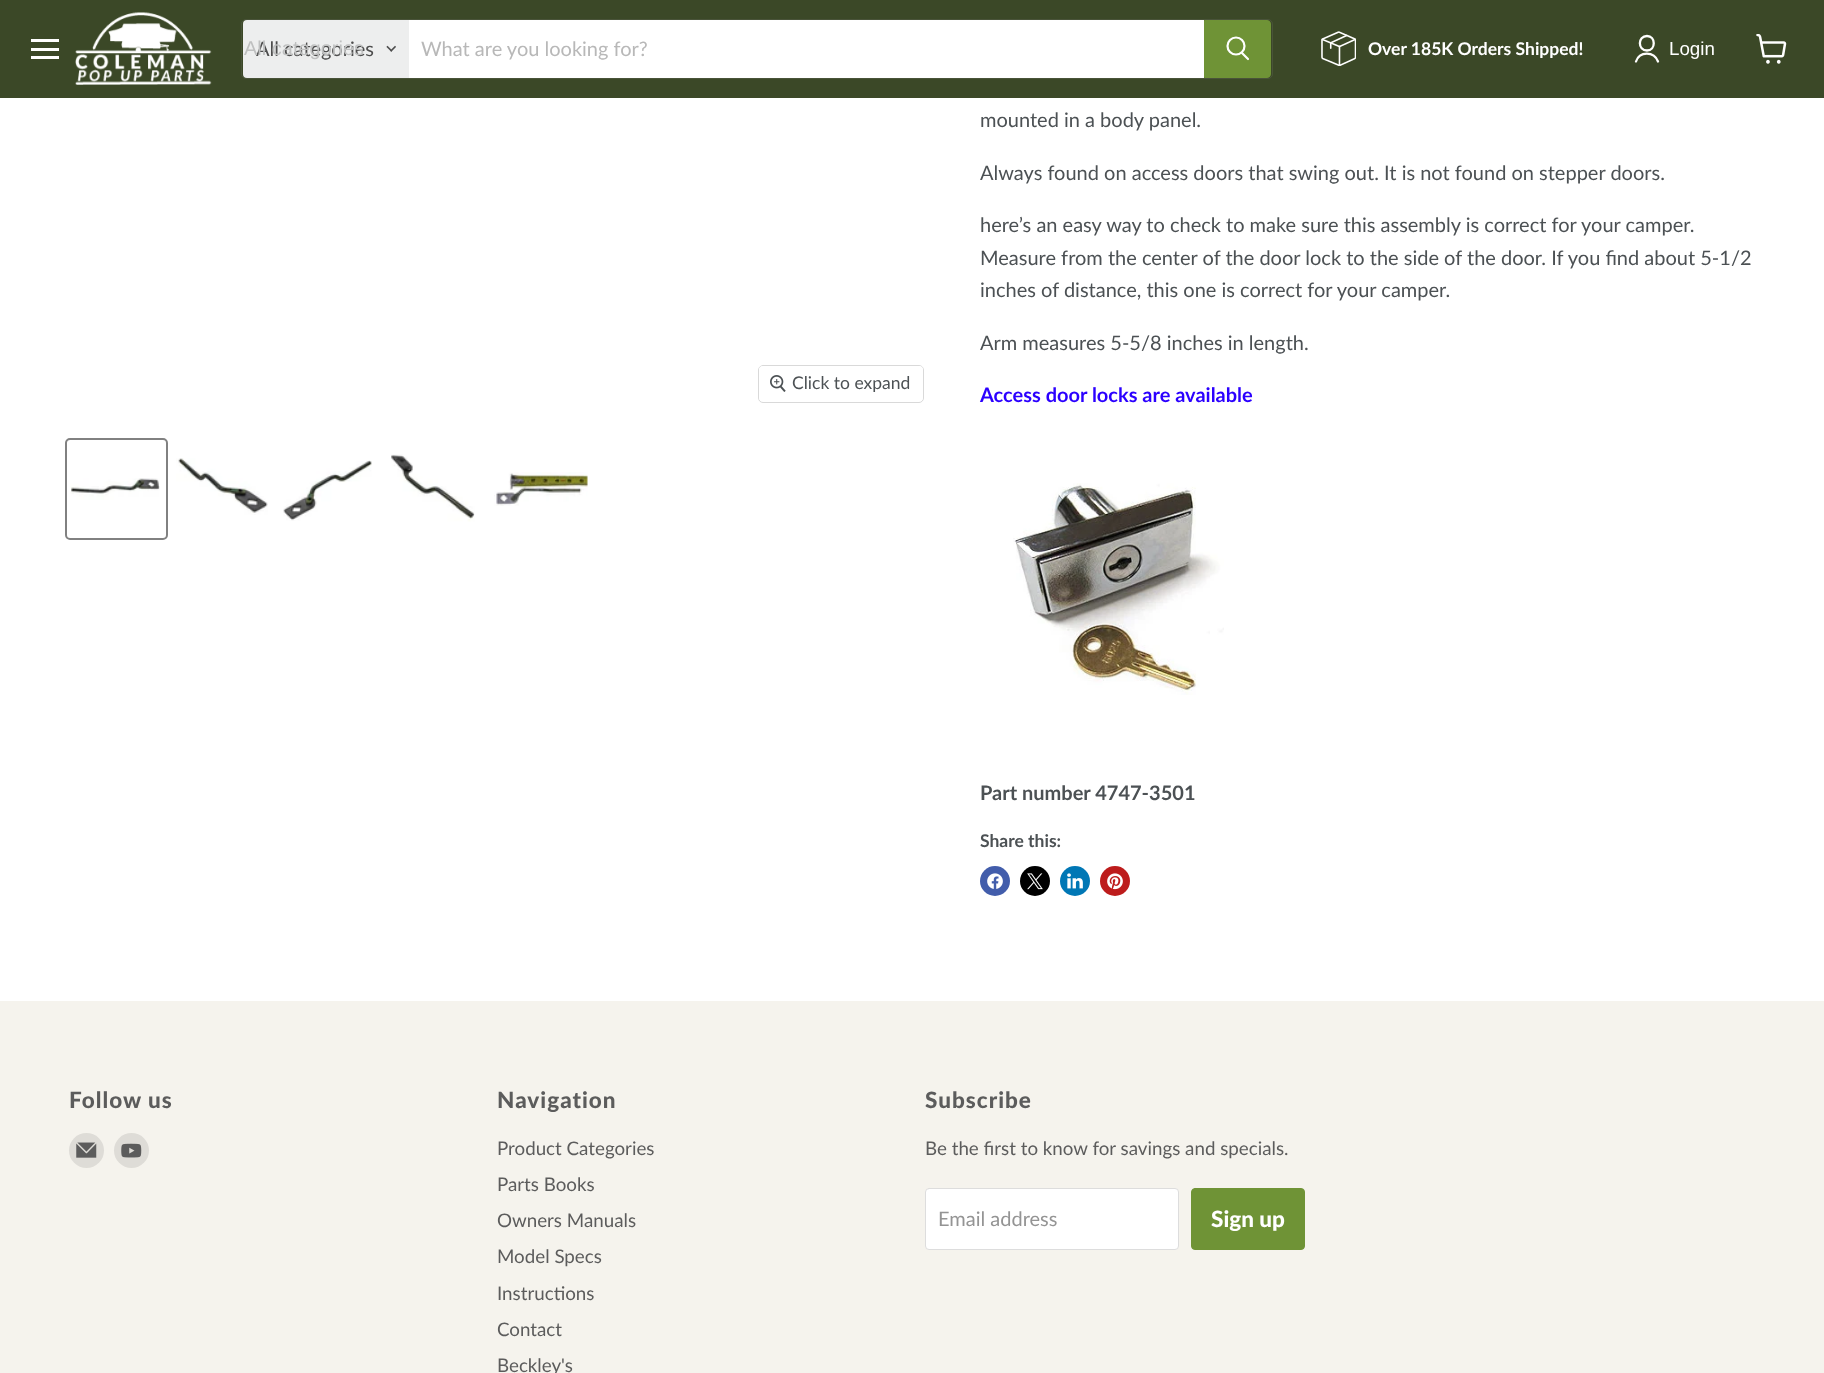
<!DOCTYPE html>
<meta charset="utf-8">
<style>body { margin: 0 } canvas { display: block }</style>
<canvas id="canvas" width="1824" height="1373"></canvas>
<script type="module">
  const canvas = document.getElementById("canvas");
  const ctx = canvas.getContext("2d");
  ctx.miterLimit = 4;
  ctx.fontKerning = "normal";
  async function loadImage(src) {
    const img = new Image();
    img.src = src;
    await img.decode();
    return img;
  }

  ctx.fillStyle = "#ffffff";
  ctx.fillRect(0, 0, 1824, 1373);
  ctx.fillStyle = "#3b4827";
  ctx.fillRect(0, 0, 1824, 98);
  ctx.fillStyle = "#ffffff";
  ctx.fillRect(31, 39, 28, 3);
  ctx.fillRect(31, 48, 28, 3);
  ctx.fillRect(31, 56, 28, 3);
  ctx.drawImage(await loadImage("img1.png"), 75, 12, 137, 73);
  ctx.beginPath();
  ctx.roundRect(241.5, 19.5, 1031, 59, 4.5);
  ctx.strokeStyle = "rgba(128, 128, 128, 0.2)";
  ctx.stroke();
  ctx.fillStyle = "#edeeee";
  ctx.beginPath();
  ctx.roundRect(243, 20, 166, 58, [4, 0, 0, 4]);
  ctx.fill();
  ctx.font = "20px Lato";
  ctx.fillStyle = "#4d4d4d";
  ctx.fillText("All categories", 256, 56);
  ctx.font = "20px Liberation Sans";
  ctx.fillStyle = "#bfc0c0";
  ctx.fillText("All categories", 244, 55);
  ctx.drawImage(await loadImage("img2.png"), 386, 45, 10, 7);
  ctx.fillStyle = "#ffffff";
  ctx.fillRect(409, 20, 795, 58);
  ctx.font = "20px Lato";
  ctx.fillStyle = "#b8b8b8";
  ctx.fillText("What are you looking for?", 421, 56);
  ctx.fillStyle = "#6f9336";
  ctx.beginPath();
  ctx.roundRect(1204.5, 20.5, 66, 57, [0, 3.5, 3.5, 0]);
  ctx.fill();
  ctx.strokeStyle = "#6f9336";
  ctx.stroke();
  ctx.beginPath();
  ctx.moveTo(1248, 59);
  ctx.lineTo(1242, 53);
  ctx.strokeStyle = "#ffffff";
  ctx.lineWidth = 2.2;
  ctx.lineCap = "round";
  ctx.stroke();
  ctx.beginPath();
  ctx.arc(1236, 46, 8.5, 0, Math.PI * 2);
  ctx.stroke();
  ctx.drawImage(await loadImage("img3.png"), 1321, 31, 35, 35);
  ctx.font = "bold 17.5px Lato";
  ctx.fillStyle = "#ffffff";
  ctx.fillText("Over 185K Orders Shipped!", 1368, 55);
  ctx.beginPath();
  ctx.moveTo(1647, 50.5);
  ctx.bezierCurveTo(1656, 50.5, 1656, 36, 1647, 36);
  ctx.bezierCurveTo(1637.5, 36, 1637.5, 50.5, 1647, 50.5);
  ctx.closePath();
  ctx.moveTo(1658, 61.5);
  ctx.bezierCurveTo(1654, 51, 1639.5, 51, 1636, 61.5);
  ctx.lineWidth = 2.3;
  ctx.lineJoin = "round";
  ctx.stroke();
  ctx.font = "18.75px Liberation Sans";
  ctx.fillText("Login", 1669, 55);
  ctx.drawImage(await loadImage("img4.png"), 1756, 34, 31, 30);
  ctx.beginPath();
  ctx.roundRect(758.5, 365.5, 165, 37, 4.5);
  ctx.strokeStyle = "#d9d9d9";
  ctx.lineWidth = 1;
  ctx.lineJoin = "miter";
  ctx.stroke();
  ctx.fillStyle = "rgba(255, 255, 255, 0.9)";
  ctx.beginPath();
  ctx.roundRect(759, 366, 164, 35, 4);
  ctx.fill();
  ctx.drawImage(await loadImage("img5.png"), 770, 375, 16, 17);
  ctx.font = "17.5px Lato";
  ctx.fillStyle = "#4c5154";
  ctx.fillText("Click to expand", 792, 389);
  ctx.beginPath();
  ctx.roundRect(66, 439, 101, 100, 4);
  ctx.strokeStyle = "#818181";
  ctx.lineWidth = 2;
  ctx.stroke();
  ctx.drawImage(await loadImage("img6.png"), 70, 478, 90, 22);
  ctx.drawImage(await loadImage("img7.png"), 176, 458, 92, 57);
  ctx.drawImage(await loadImage("img8.png"), 283, 460, 89, 61);
  ctx.drawImage(await loadImage("img9.png"), 391, 454, 84, 68);
  ctx.drawImage(await loadImage("img10.png"), 494, 472, 94, 34);
  ctx.font = "20px Lato";
  ctx.fillText("mounted in a body panel.", 980, 127);
  ctx.fillText("Always found on access doors that swing out. It is not found on stepper doors.", 980, 180);
  ctx.fillText("here’s an easy way to check to make sure this assembly is correct for your camper.", 980, 232);
  ctx.fillText("Measure from the center of the door lock to the side of the door. If you find about 5-1/2", 980, 265);
  ctx.fillText("inches of distance, this one is correct for your camper.", 980, 297);
  ctx.fillText("Arm measures 5-5/8 inches in length.", 980, 350);
  ctx.font = "bold 20px Lato";
  ctx.fillStyle = "#2b00ff";
  ctx.fillText("Access door locks are available", 980, 402);
  ctx.drawImage(await loadImage("img11.png"), 1013, 483, 211, 212);
  ctx.fillStyle = "#4c5154";
  ctx.fillText("Part number 4747-3501", 980, 800);
  ctx.font = "bold 17.5px Lato";
  ctx.fillText("Share this:", 980, 847);
  ctx.fillStyle = "#425dab";
  ctx.beginPath();
  ctx.arc(995, 881, 15, 0, Math.PI * 2);
  ctx.fill();
  ctx.drawImage(await loadImage("img12.png"), 987, 873, 16, 16);
  ctx.fillStyle = "#000000";
  ctx.beginPath();
  ctx.arc(1035, 881, 15, 0, Math.PI * 2);
  ctx.fill();
  ctx.drawImage(await loadImage("img13.png"), 1027, 873, 16, 17);
  ctx.fillStyle = "#0077b5";
  ctx.beginPath();
  ctx.arc(1075, 881, 15, 0, Math.PI * 2);
  ctx.fill();
  ctx.drawImage(await loadImage("img14.png"), 1067, 873, 16, 16);
  ctx.fillStyle = "#bd1c1c";
  ctx.beginPath();
  ctx.arc(1115, 881, 15, 0, Math.PI * 2);
  ctx.fill();
  ctx.drawImage(await loadImage("img15.png"), 1107, 873, 16, 17);
  ctx.fillStyle = "#f5f3ed";
  ctx.fillRect(0, 1001, 1824, 372);
  ctx.letterSpacing = "1px";
  ctx.font = "900 22.5px Lato";
  ctx.fillStyle = "#5c5c5c";
  ctx.fillText("Follow us", 69, 1108);
  ctx.fillStyle = "#dedcd7";
  ctx.beginPath();
  ctx.arc(86.5, 1150.5, 17.5, 0, Math.PI * 2);
  ctx.fill();
  ctx.drawImage(await loadImage("img16.png"), 76, 1142, 21, 16);
  ctx.beginPath();
  ctx.arc(131.5, 1150.5, 17.5, 0, Math.PI * 2);
  ctx.fill();
  ctx.drawImage(await loadImage("img17.png"), 121, 1143, 21, 15);
  ctx.fillStyle = "#5c5c5c";
  ctx.fillText("Navigation", 497, 1108);
  ctx.letterSpacing = "0px";
  ctx.font = "18.75px Lato";
  ctx.fillText("Product Categories", 497, 1155);
  ctx.fillText("Parts Books", 497, 1191);
  ctx.fillText("Owners Manuals", 497, 1227);
  ctx.fillText("Model Specs", 497, 1263);
  ctx.fillText("Instructions", 497, 1300);
  ctx.fillText("Contact", 497, 1336);
  ctx.fillText("Beckley's", 497, 1372);
  ctx.letterSpacing = "1px";
  ctx.font = "900 22.5px Lato";
  ctx.fillText("Subscribe", 925, 1108);
  ctx.letterSpacing = "0px";
  ctx.font = "18.75px Lato";
  ctx.fillText("Be the first to know for savings and specials.", 925, 1155);
  ctx.fillStyle = "#ffffff";
  ctx.beginPath();
  ctx.roundRect(925.5, 1188.5, 253, 61, 3.5);
  ctx.fill();
  ctx.strokeStyle = "#dddddd";
  ctx.lineWidth = 1;
  ctx.stroke();
  ctx.font = "20px Lato";
  ctx.fillStyle = "#949494";
  ctx.fillText("Email address", 938, 1226);
  ctx.fillStyle = "#6f9336";
  ctx.beginPath();
  ctx.roundRect(1191.5, 1188.5, 113, 61, 3.5);
  ctx.fill();
  ctx.strokeStyle = "#6f9336";
  ctx.stroke();
  ctx.font = "900 22.5px Lato";
  ctx.fillStyle = "#ffffff";
  ctx.fillText("Sign up", 1211, 1227);
</script>
